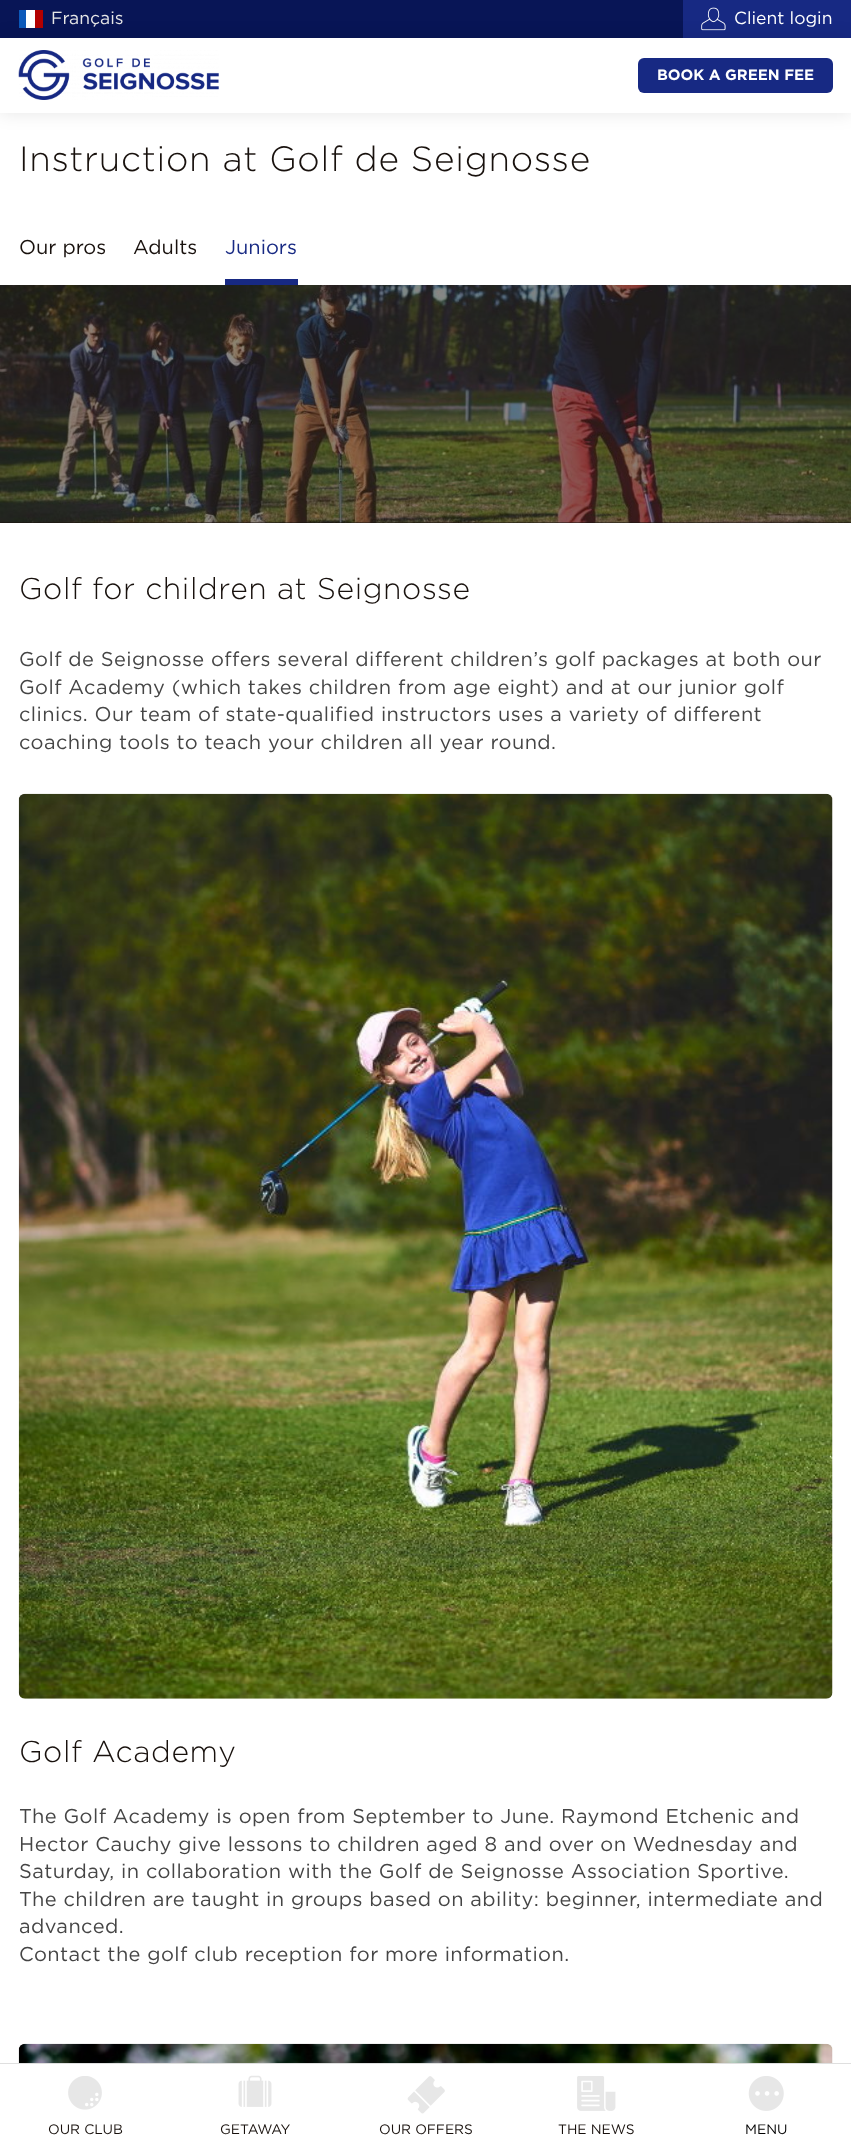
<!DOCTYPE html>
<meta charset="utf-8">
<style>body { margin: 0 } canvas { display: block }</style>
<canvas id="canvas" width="851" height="2149"></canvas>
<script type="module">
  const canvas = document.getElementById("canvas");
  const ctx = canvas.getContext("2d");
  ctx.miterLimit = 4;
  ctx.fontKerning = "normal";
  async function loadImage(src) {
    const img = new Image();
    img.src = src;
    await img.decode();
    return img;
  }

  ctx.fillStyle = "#ffffff";
  ctx.fillRect(0, 0, 851, 2149);
  ctx.fillStyle = "#081556";
  ctx.fillRect(0, 0, 683, 38);
  ctx.fillStyle = "#0c59ba";
  ctx.fillRect(19, 10, 7, 18);
  ctx.fillStyle = "#ffffff";
  ctx.fillRect(26, 10, 9, 18);
  ctx.fillStyle = "#b30000";
  ctx.fillRect(35, 10, 8, 18);
  ctx.font = "17.5px Gotham";
  ctx.fillStyle = "#e7e7e7";
  ctx.fillText("Français", 51, 24);
  ctx.fillStyle = "#172983";
  ctx.fillRect(683, 0, 168, 38);
  ctx.drawImage(await loadImage("img1.png"), 701, 7, 25, 24);
  ctx.fillStyle = "#ffffff";
  ctx.fillText("Client login", 734, 24);
  ctx.fillStyle = "rgba(0, 0, 0, 0.1)";
  ctx.filter = "blur(9px)";
  ctx.beginPath();
  ctx.rect(0, 38, 851, 75);
  ctx.fill();
  ctx.filter = "none";
  ctx.fillStyle = "#ffffff";
  ctx.fillRect(0, 38, 851, 75);
  ctx.drawImage(await loadImage("img2.png"), 18, 50, 201, 50);
  ctx.fillStyle = "#172983";
  ctx.beginPath();
  ctx.roundRect(638, 58, 195, 35, 6);
  ctx.fill();
  ctx.font = "bold 15px Gotham";
  ctx.fillStyle = "#ffffff";
  ctx.fillText("BOOK A GREEN FEE", 657, 80);
  ctx.letterSpacing = "0.75px";
  ctx.font = "300 35px Gotham";
  ctx.fillStyle = "#18110d";
  ctx.fillText("Instruction at Golf de Seignosse", 19, 171);
  ctx.letterSpacing = "0px";
  ctx.font = "20px Gotham";
  ctx.fillText("Our pros", 19, 254);
  ctx.fillText("Adults", 133, 254);
  ctx.fillStyle = "#172983";
  ctx.fillText("Juniors", 225, 254);
  ctx.fillRect(225, 279, 73, 6);
  ctx.fillStyle = "#18110d";
  ctx.fillRect(0, 285, 851, 238);
  ctx.drawImage(await loadImage("img3.png"), 0, 285, 851, 238);
  ctx.letterSpacing = "0.6px";
  ctx.font = "300 30px Gotham";
  ctx.fillText("Golf for children at Seignosse", 19, 599);
  ctx.letterSpacing = "0.43px";
  ctx.font = "20px Gotham";
  ctx.fillStyle = "#454545";
  ctx.fillText("Golf de Seignosse offers several different children’s golf packages at both our", 19, 666);
  ctx.fillText("Golf Academy (which takes children from age eight) and at our junior golf", 19, 694);
  ctx.fillText("clinics. Our team of state-qualified instructors uses a variety of different", 19, 721);
  ctx.fillText("coaching tools to teach your children all year round.", 19, 749);
  ctx.drawImage(await loadImage("img4.png"), 18, 793, 815, 906);
  ctx.letterSpacing = "0.6px";
  ctx.font = "300 30px Gotham";
  ctx.fillStyle = "#18110d";
  ctx.fillText("Golf Academy", 19, 1762);
  ctx.letterSpacing = "0.43px";
  ctx.font = "20px Gotham";
  ctx.fillStyle = "#454545";
  ctx.fillText("The Golf Academy is open from September to June. Raymond Etchenic and", 19, 1823);
  ctx.fillText("Hector Cauchy give lessons to children aged 8 and over on Wednesday and", 19, 1851);
  ctx.fillText("Saturday, in collaboration with the Golf de Seignosse Association Sportive.", 19, 1878);
  ctx.fillText("The children are taught in groups based on ability: beginner, intermediate and", 19, 1906);
  ctx.fillText("advanced.", 19, 1933);
  ctx.fillText("Contact the golf club reception for more information.", 19, 1961);
  ctx.drawImage(await loadImage("img5.png"), 18, 2043, 815, 20);
  ctx.fillStyle = "#dfdfdf";
  ctx.fillRect(0, 2063, 851, 1);
  ctx.drawImage(await loadImage("img6.png"), 68, 2076, 34, 34);
  ctx.letterSpacing = "0px";
  ctx.font = "13.75px Gotham";
  ctx.fillStyle = "#18110d";
  ctx.fillText("OUR CLUB", 48, 2134);
  ctx.drawImage(await loadImage("img7.png"), 238, 2075, 34, 32);
  ctx.fillText("GETAWAY", 220, 2134);
  ctx.drawImage(await loadImage("img8.png"), 407, 2076, 38, 38);
  ctx.fillText("OUR OFFERS", 379, 2134);
  ctx.drawImage(await loadImage("img9.png"), 577, 2076, 39, 35);
  ctx.fillText("THE NEWS", 558, 2134);
  ctx.drawImage(await loadImage("img10.png"), 748, 2076, 36, 35);
  ctx.fillStyle = "#000000";
  ctx.fillText("MENU", 745, 2134);
</script>
